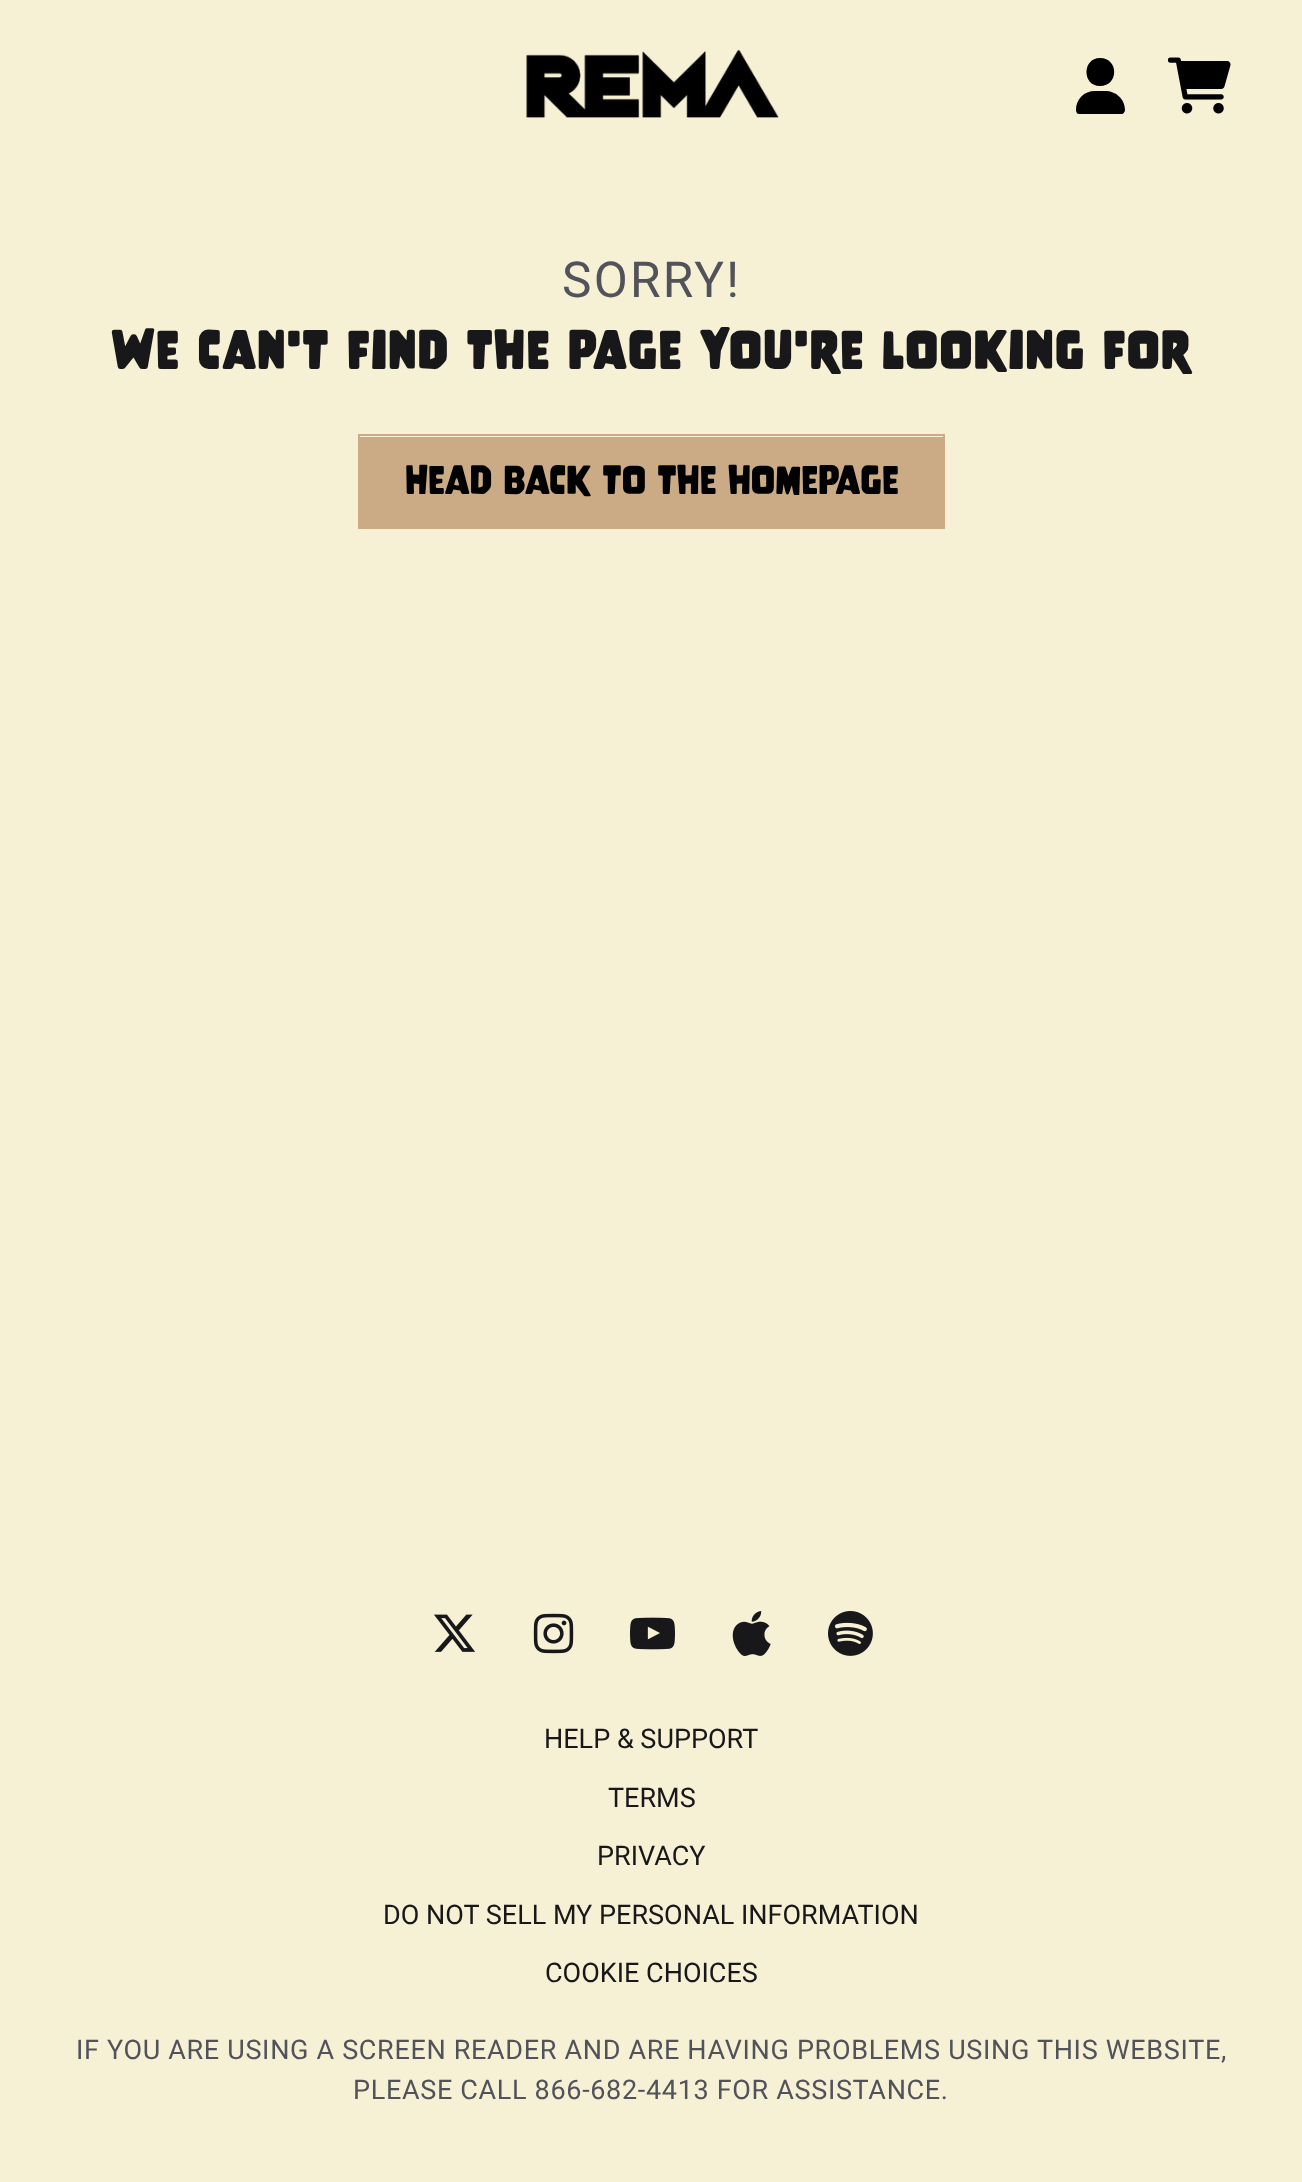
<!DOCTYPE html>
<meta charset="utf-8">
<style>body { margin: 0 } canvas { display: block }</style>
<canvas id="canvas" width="1302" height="2182"></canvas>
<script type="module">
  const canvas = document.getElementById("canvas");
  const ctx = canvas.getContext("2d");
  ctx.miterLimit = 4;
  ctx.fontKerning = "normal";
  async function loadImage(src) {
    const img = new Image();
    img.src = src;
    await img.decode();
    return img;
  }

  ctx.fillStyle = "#f6f1d5";
  ctx.fillRect(0, 0, 1302, 2182);
  ctx.drawImage(await loadImage("img1.png"), 526, 49, 253, 69);
  ctx.fillStyle = "#000000";
  ctx.beginPath();
  ctx.moveTo(1100, 86);
  ctx.bezierCurveTo(1119, 86, 1119, 58, 1100, 58);
  ctx.bezierCurveTo(1082, 58, 1082, 86, 1100, 86);
  ctx.closePath();
  ctx.moveTo(1095, 91);
  ctx.bezierCurveTo(1084, 91, 1076, 99, 1076, 110);
  ctx.bezierCurveTo(1076, 112, 1077, 114, 1079, 114);
  ctx.lineTo(1122, 114);
  ctx.bezierCurveTo(1123, 114, 1125, 112, 1125, 110);
  ctx.bezierCurveTo(1125, 99, 1116, 91, 1105, 91);
  ctx.closePath();
  ctx.fill();
  ctx.drawImage(await loadImage("img2.png"), 1168, 57, 63, 57);
  ctx.letterSpacing = "2.25px";
  ctx.font = "49.5px Roboto";
  ctx.fillStyle = "#52525b";
  ctx.fillText("SORRY!", 562, 297);
  ctx.font = "bold 47.25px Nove";
  ctx.fillStyle = "#18181b";
  ctx.fillText("We can't find the page you're looking for", 111, 369);
  ctx.fillStyle = "#cbab86";
  ctx.fillRect(360, 437, 583, 90);
  ctx.strokeStyle = "#cbab86";
  ctx.lineWidth = 2;
  ctx.strokeRect(359, 435, 585, 93);
  ctx.letterSpacing = "0px";
  ctx.font = "36px Nove";
  ctx.fillStyle = "#000000";
  ctx.fillText("Head back to the homepage", 405, 494);
  ctx.drawImage(await loadImage("img3.png"), 434, 1614, 41, 38);
  ctx.drawImage(await loadImage("img4.png"), 533, 1613, 41, 41);
  ctx.drawImage(await loadImage("img5.png"), 630, 1617, 45, 33);
  ctx.drawImage(await loadImage("img6.png"), 732, 1611, 39, 45);
  ctx.drawImage(await loadImage("img7.png"), 828, 1611, 45, 45);
  ctx.font = "27px Roboto";
  ctx.fillStyle = "#18181b";
  ctx.fillText("HELP & SUPPORT", 544, 1748);
  ctx.fillText("TERMS", 608, 1807);
  ctx.fillText("PRIVACY", 597, 1865);
  ctx.fillText("DO NOT SELL MY PERSONAL INFORMATION", 383, 1924);
  ctx.fillText("COOKIE CHOICES", 545, 1982);
  ctx.letterSpacing = "0.67px";
  ctx.fillStyle = "#52525b";
  ctx.fillText("IF YOU ARE USING A SCREEN READER AND ARE HAVING PROBLEMS USING THIS WEBSITE,", 76, 2059);
  ctx.fillText("PLEASE CALL 866-682-4413 FOR ASSISTANCE.", 353, 2099);
</script>
